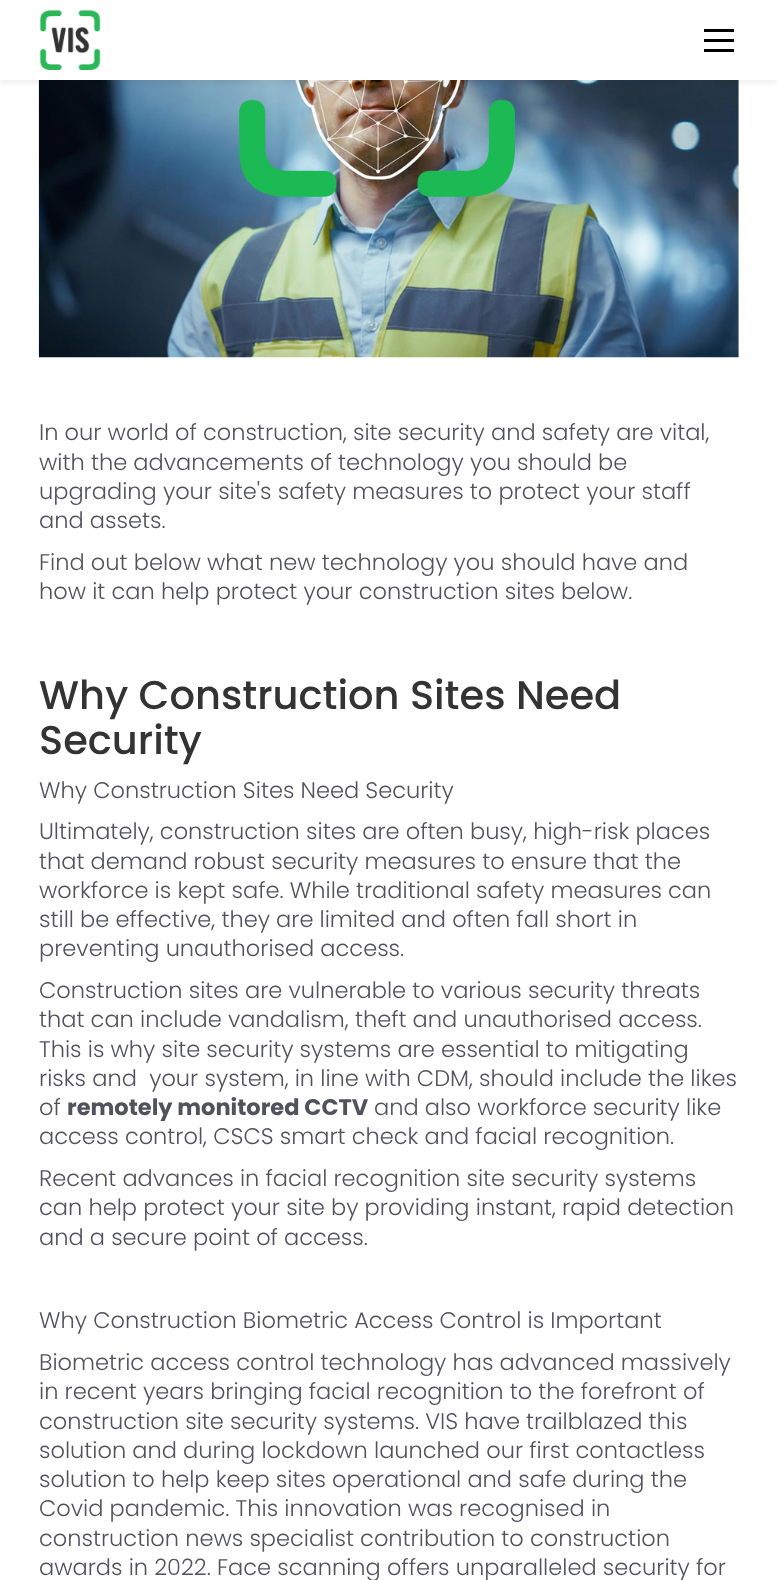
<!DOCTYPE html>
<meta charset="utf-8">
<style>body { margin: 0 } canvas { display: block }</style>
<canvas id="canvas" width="777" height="1580"></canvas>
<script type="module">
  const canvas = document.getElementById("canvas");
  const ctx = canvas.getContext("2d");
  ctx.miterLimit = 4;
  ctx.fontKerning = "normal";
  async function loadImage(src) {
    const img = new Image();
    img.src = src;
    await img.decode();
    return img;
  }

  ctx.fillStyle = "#ffffff";
  ctx.fillRect(0, 0, 777, 1580);
  ctx.drawImage(await loadImage("img2.png"), 38, 80, 701, 278);
  ctx.fillStyle = "rgba(0, 0, 0, 0.05)";
  ctx.filter = "blur(2px)";
  ctx.beginPath();
  ctx.rect(0, 4, 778, 80);
  ctx.fill();
  ctx.filter = "none";
  ctx.fillStyle = "#ffffff";
  ctx.fillRect(0, 2, 777, 78);
  ctx.drawImage(await loadImage("img1.png"), 39, 10, 62, 60);
  ctx.fillStyle = "#000000";
  ctx.fillRect(704, 29, 30, 3);
  ctx.fillRect(704, 39, 30, 3);
  ctx.fillRect(704, 49, 30, 3);
  ctx.font = "300 22.5px Poppins";
  ctx.fillStyle = "#51525c";
  ctx.fillText("In our world of construction, site security and safety are vital,", 39, 440);
  ctx.fillText("with the advancements of technology you should be", 39, 470);
  ctx.fillText("upgrading your site's safety measures to protect your staff", 39, 499);
  ctx.fillText("and assets.", 39, 528);
  ctx.fillText("Find out below what new technology you should have and", 39, 570);
  ctx.fillText("how it can help protect your construction sites below.", 39, 599);
  ctx.font = "500 40px Poppins";
  ctx.fillStyle = "#333333";
  ctx.fillText("Why Construction Sites Need", 39, 709);
  ctx.fillText("Security", 39, 754);
  ctx.font = "300 22.5px Poppins";
  ctx.fillStyle = "#51525c";
  ctx.fillText("Why Construction Sites Need Security", 39, 798);
  ctx.fillText("Ultimately, construction sites are often busy, high-risk places", 39, 839);
  ctx.fillText("that demand robust security measures to ensure that the", 39, 869);
  ctx.fillText("workforce is kept safe. While traditional safety measures can", 39, 898);
  ctx.fillText("still be effective, they are limited and often fall short in", 39, 927);
  ctx.fillText("preventing unauthorised access.", 39, 956);
  ctx.fillText("Construction sites are vulnerable to various security threats", 39, 998);
  ctx.fillText("that can include vandalism, theft and unauthorised access.", 39, 1027);
  ctx.fillText("This is why site security systems are essential to mitigating", 39, 1057);
  ctx.fillText("risks and  your system, in line with CDM, should include the likes", 39, 1086);
  ctx.fillText("of", 39, 1115);
  ctx.font = "bold 22.5px Poppins";
  ctx.fillText("remotely monitored CCTV", 67, 1115);
  ctx.font = "300 22.5px Poppins";
  ctx.fillText("and also workforce security like", 374, 1115);
  ctx.fillText("access control, CSCS smart check and facial recognition.", 39, 1144);
  ctx.fillText("Recent advances in facial recognition site security systems", 39, 1186);
  ctx.fillText("can help protect your site by providing instant, rapid detection", 39, 1215);
  ctx.fillText("and a secure point of access.", 39, 1245);
  ctx.fillText("Why Construction Biometric Access Control is Important", 39, 1328);
  ctx.fillText("Biometric access control technology has advanced massively", 39, 1370);
  ctx.fillText("in recent years bringing facial recognition to the forefront of", 39, 1399);
  ctx.fillText("construction site security systems. VIS have trailblazed this", 39, 1429);
  ctx.fillText("solution and during lockdown launched our first contactless", 39, 1458);
  ctx.fillText("solution to help keep sites operational and safe during the", 39, 1487);
  ctx.fillText("Covid pandemic. This innovation was recognised in", 39, 1516);
  ctx.fillText("construction news specialist contribution to construction", 39, 1546);
  ctx.fillText("awards in 2022. Face scanning offers unparalleled security for", 39, 1575);
</script>
